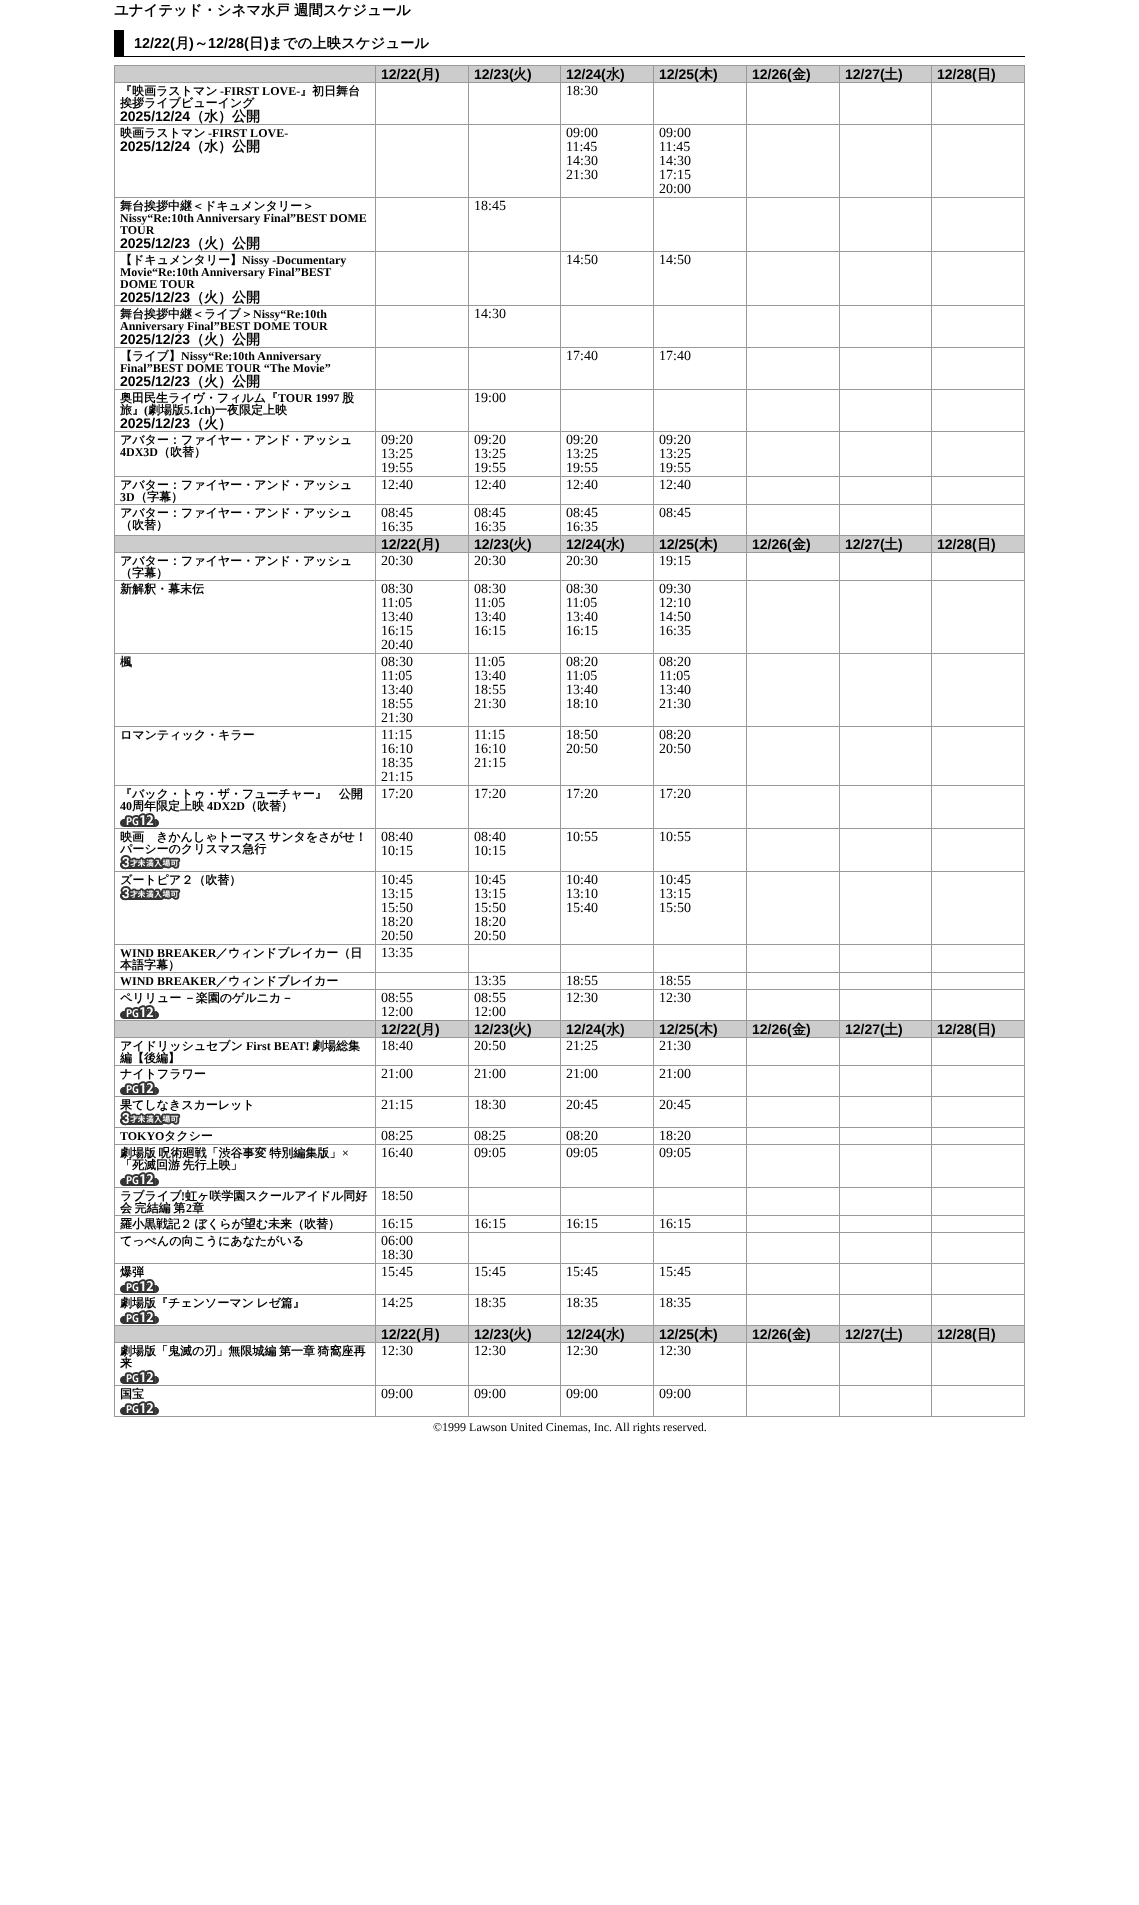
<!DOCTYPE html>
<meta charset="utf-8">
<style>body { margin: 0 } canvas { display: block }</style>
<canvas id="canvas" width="1139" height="1905"></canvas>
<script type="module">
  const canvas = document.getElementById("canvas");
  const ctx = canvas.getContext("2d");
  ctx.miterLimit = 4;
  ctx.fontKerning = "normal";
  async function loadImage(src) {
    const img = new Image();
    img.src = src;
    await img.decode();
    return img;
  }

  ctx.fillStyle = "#ffffff";
  ctx.fillRect(0, 0, 1139, 1905);
  ctx.font = "bold 14.4px WenQuanYi Zen Hei";
  ctx.fillStyle = "#000000";
  ctx.fillText("ユナイテッド・シネマ水戸 週間スケジュール", 114, 15);
  ctx.fillRect(124, 56, 901, 1);
  ctx.fillRect(114, 30, 10, 27);
  ctx.font = "bold 14.4px Liberation Sans";
  ctx.fillText("12/22(", 134, 48);
  ctx.font = "bold 14.4px WenQuanYi Zen Hei";
  ctx.fillText("月", 175, 48);
  ctx.font = "bold 14.4px Liberation Sans";
  ctx.fillText(")", 189, 48);
  ctx.font = "bold 14.4px WenQuanYi Zen Hei";
  ctx.fillText("～", 194, 48);
  ctx.font = "bold 14.4px Liberation Sans";
  ctx.fillText("12/28(", 208, 48);
  ctx.font = "bold 14.4px WenQuanYi Zen Hei";
  ctx.fillText("日", 249, 48);
  ctx.font = "bold 14.4px Liberation Sans";
  ctx.fillText(")", 264, 48);
  ctx.font = "bold 14.4px WenQuanYi Zen Hei";
  ctx.fillText("までの上映スケジュール", 268, 48);
  ctx.fillStyle = "#999999";
  ctx.fillRect(114, 65, 911, 1);
  ctx.fillRect(1024, 65, 1, 1352);
  ctx.fillRect(114, 1416, 911, 1);
  ctx.fillRect(114, 65, 1, 1352);
  ctx.fillStyle = "#cccccc";
  ctx.fillRect(115, 66, 260, 16);
  ctx.fillRect(376, 66, 92, 16);
  ctx.font = "bold 14px Liberation Sans";
  ctx.fillStyle = "#000000";
  ctx.fillText("12/22(", 381, 79);
  ctx.font = "bold 14px WenQuanYi Zen Hei";
  ctx.fillText("月", 421, 79);
  ctx.font = "bold 14px Liberation Sans";
  ctx.fillText(")", 435, 79);
  ctx.fillStyle = "#cccccc";
  ctx.fillRect(469, 66, 91, 16);
  ctx.fillStyle = "#000000";
  ctx.fillText("12/23(", 474, 79);
  ctx.font = "bold 14px WenQuanYi Zen Hei";
  ctx.fillText("火", 513, 79);
  ctx.font = "bold 14px Liberation Sans";
  ctx.fillText(")", 527, 79);
  ctx.fillStyle = "#cccccc";
  ctx.fillRect(561, 66, 92, 16);
  ctx.fillStyle = "#000000";
  ctx.fillText("12/24(", 566, 79);
  ctx.font = "bold 14px WenQuanYi Zen Hei";
  ctx.fillText("水", 606, 79);
  ctx.font = "bold 14px Liberation Sans";
  ctx.fillText(")", 620, 79);
  ctx.fillStyle = "#cccccc";
  ctx.fillRect(654, 66, 92, 16);
  ctx.fillStyle = "#000000";
  ctx.fillText("12/25(", 659, 79);
  ctx.font = "bold 14px WenQuanYi Zen Hei";
  ctx.fillText("木", 699, 79);
  ctx.font = "bold 14px Liberation Sans";
  ctx.fillText(")", 713, 79);
  ctx.fillStyle = "#cccccc";
  ctx.fillRect(747, 66, 92, 16);
  ctx.fillStyle = "#000000";
  ctx.fillText("12/26(", 752, 79);
  ctx.font = "bold 14px WenQuanYi Zen Hei";
  ctx.fillText("金", 792, 79);
  ctx.font = "bold 14px Liberation Sans";
  ctx.fillText(")", 806, 79);
  ctx.fillStyle = "#cccccc";
  ctx.fillRect(840, 66, 91, 16);
  ctx.fillStyle = "#000000";
  ctx.fillText("12/27(", 845, 79);
  ctx.font = "bold 14px WenQuanYi Zen Hei";
  ctx.fillText("土", 884, 79);
  ctx.font = "bold 14px Liberation Sans";
  ctx.fillText(")", 898, 79);
  ctx.fillStyle = "#cccccc";
  ctx.fillRect(932, 66, 92, 16);
  ctx.fillStyle = "#000000";
  ctx.fillText("12/28(", 937, 79);
  ctx.font = "bold 14px WenQuanYi Zen Hei";
  ctx.fillText("日", 977, 79);
  ctx.font = "bold 14px Liberation Sans";
  ctx.fillText(")", 991, 79);
  ctx.fillStyle = "#999999";
  ctx.fillRect(114, 82, 911, 1);
  ctx.font = "bold 12px WenQuanYi Zen Hei";
  ctx.fillStyle = "#000000";
  ctx.fillText("『映画ラストマン", 120, 95);
  ctx.font = "bold 12px Liberation Serif";
  ctx.fillText("-FIRST LOVE-", 220, 95);
  ctx.font = "bold 12px WenQuanYi Zen Hei";
  ctx.fillText("』初日舞台", 300, 95);
  ctx.fillText("挨拶ライブビューイング", 120, 107);
  ctx.font = "bold 14px Liberation Sans";
  ctx.fillText("2025/12/24", 120, 121);
  ctx.font = "bold 14px WenQuanYi Zen Hei";
  ctx.fillText("（水）公開", 190, 121);
  ctx.font = "14px Liberation Serif";
  ctx.fillText("18:30", 566, 95);
  ctx.fillStyle = "#999999";
  ctx.fillRect(114, 124, 911, 1);
  ctx.font = "bold 12px WenQuanYi Zen Hei";
  ctx.fillStyle = "#000000";
  ctx.fillText("映画ラストマン", 120, 137);
  ctx.font = "bold 12px Liberation Serif";
  ctx.fillText("-FIRST LOVE-", 208, 137);
  ctx.font = "bold 14px Liberation Sans";
  ctx.fillText("2025/12/24", 120, 151);
  ctx.font = "bold 14px WenQuanYi Zen Hei";
  ctx.fillText("（水）公開", 190, 151);
  ctx.font = "14px Liberation Serif";
  ctx.fillText("09:00", 566, 137);
  ctx.fillText("11:45", 566, 151);
  ctx.fillText("14:30", 566, 165);
  ctx.fillText("21:30", 566, 179);
  ctx.fillText("09:00", 659, 137);
  ctx.fillText("11:45", 659, 151);
  ctx.fillText("14:30", 659, 165);
  ctx.fillText("17:15", 659, 179);
  ctx.fillText("20:00", 659, 193);
  ctx.fillStyle = "#999999";
  ctx.fillRect(114, 197, 911, 1);
  ctx.font = "bold 12px WenQuanYi Zen Hei";
  ctx.fillStyle = "#000000";
  ctx.fillText("舞台挨拶中継＜ドキュメンタリー＞", 120, 210);
  ctx.font = "bold 12px Liberation Serif";
  ctx.fillText("Nissy“Re:10th Anniversary Final”BEST DOME", 120, 222);
  ctx.fillText("TOUR", 120, 234);
  ctx.font = "bold 14px Liberation Sans";
  ctx.fillText("2025/12/23", 120, 248);
  ctx.font = "bold 14px WenQuanYi Zen Hei";
  ctx.fillText("（火）公開", 190, 248);
  ctx.font = "14px Liberation Serif";
  ctx.fillText("18:45", 474, 210);
  ctx.fillStyle = "#999999";
  ctx.fillRect(114, 251, 911, 1);
  ctx.font = "bold 12px WenQuanYi Zen Hei";
  ctx.fillStyle = "#000000";
  ctx.fillText("【ドキュメンタリー】", 120, 264);
  ctx.font = "bold 12px Liberation Serif";
  ctx.fillText("Nissy -Documentary", 242, 264);
  ctx.fillText("Movie“Re:10th Anniversary Final”BEST", 120, 276);
  ctx.fillText("DOME TOUR", 120, 288);
  ctx.font = "bold 14px Liberation Sans";
  ctx.fillText("2025/12/23", 120, 302);
  ctx.font = "bold 14px WenQuanYi Zen Hei";
  ctx.fillText("（火）公開", 190, 302);
  ctx.font = "14px Liberation Serif";
  ctx.fillText("14:50", 566, 264);
  ctx.fillText("14:50", 659, 264);
  ctx.fillStyle = "#999999";
  ctx.fillRect(114, 305, 911, 1);
  ctx.font = "bold 12px WenQuanYi Zen Hei";
  ctx.fillStyle = "#000000";
  ctx.fillText("舞台挨拶中継＜ライブ＞", 120, 318);
  ctx.font = "bold 12px Liberation Serif";
  ctx.fillText("Nissy“Re:10th", 253, 318);
  ctx.fillText("Anniversary Final”BEST DOME TOUR", 120, 330);
  ctx.font = "bold 14px Liberation Sans";
  ctx.fillText("2025/12/23", 120, 344);
  ctx.font = "bold 14px WenQuanYi Zen Hei";
  ctx.fillText("（火）公開", 190, 344);
  ctx.font = "14px Liberation Serif";
  ctx.fillText("14:30", 474, 318);
  ctx.fillStyle = "#999999";
  ctx.fillRect(114, 347, 911, 1);
  ctx.font = "bold 12px WenQuanYi Zen Hei";
  ctx.fillStyle = "#000000";
  ctx.fillText("【ライブ】", 120, 360);
  ctx.font = "bold 12px Liberation Serif";
  ctx.fillText("Nissy“Re:10th Anniversary", 181, 360);
  ctx.fillText("Final”BEST DOME TOUR “The Movie”", 120, 372);
  ctx.font = "bold 14px Liberation Sans";
  ctx.fillText("2025/12/23", 120, 386);
  ctx.font = "bold 14px WenQuanYi Zen Hei";
  ctx.fillText("（火）公開", 190, 386);
  ctx.font = "14px Liberation Serif";
  ctx.fillText("17:40", 566, 360);
  ctx.fillText("17:40", 659, 360);
  ctx.fillStyle = "#999999";
  ctx.fillRect(114, 389, 911, 1);
  ctx.font = "bold 12px WenQuanYi Zen Hei";
  ctx.fillStyle = "#000000";
  ctx.fillText("奥田民生ライヴ・フィルム『", 120, 402);
  ctx.font = "bold 12px Liberation Serif";
  ctx.fillText("TOUR 1997", 278, 402);
  ctx.font = "bold 12px WenQuanYi Zen Hei";
  ctx.fillText("股", 342, 402);
  ctx.fillText("旅』", 120, 414);
  ctx.font = "bold 12px Liberation Serif";
  ctx.fillText("(", 144, 414);
  ctx.font = "bold 12px WenQuanYi Zen Hei";
  ctx.fillText("劇場版", 148, 414);
  ctx.font = "bold 12px Liberation Serif";
  ctx.fillText("5.1ch)", 184, 414);
  ctx.font = "bold 12px WenQuanYi Zen Hei";
  ctx.fillText("一夜限定上映", 215, 414);
  ctx.font = "bold 14px Liberation Sans";
  ctx.fillText("2025/12/23", 120, 428);
  ctx.font = "bold 14px WenQuanYi Zen Hei";
  ctx.fillText("（火）", 190, 428);
  ctx.font = "14px Liberation Serif";
  ctx.fillText("19:00", 474, 402);
  ctx.fillStyle = "#999999";
  ctx.fillRect(114, 431, 911, 1);
  ctx.font = "bold 12px WenQuanYi Zen Hei";
  ctx.fillStyle = "#000000";
  ctx.fillText("アバター：ファイヤー・アンド・アッシュ", 120, 444);
  ctx.font = "bold 12px Liberation Serif";
  ctx.fillText("4DX3D", 120, 456);
  ctx.font = "bold 12px WenQuanYi Zen Hei";
  ctx.fillText("（吹替）", 158, 456);
  ctx.font = "14px Liberation Serif";
  ctx.fillText("09:20", 381, 444);
  ctx.fillText("13:25", 381, 458);
  ctx.fillText("19:55", 381, 472);
  ctx.fillText("09:20", 474, 444);
  ctx.fillText("13:25", 474, 458);
  ctx.fillText("19:55", 474, 472);
  ctx.fillText("09:20", 566, 444);
  ctx.fillText("13:25", 566, 458);
  ctx.fillText("19:55", 566, 472);
  ctx.fillText("09:20", 659, 444);
  ctx.fillText("13:25", 659, 458);
  ctx.fillText("19:55", 659, 472);
  ctx.fillStyle = "#999999";
  ctx.fillRect(114, 476, 911, 1);
  ctx.font = "bold 12px WenQuanYi Zen Hei";
  ctx.fillStyle = "#000000";
  ctx.fillText("アバター：ファイヤー・アンド・アッシュ", 120, 489);
  ctx.font = "bold 12px Liberation Serif";
  ctx.fillText("3D", 120, 501);
  ctx.font = "bold 12px WenQuanYi Zen Hei";
  ctx.fillText("（字幕）", 135, 501);
  ctx.font = "14px Liberation Serif";
  ctx.fillText("12:40", 381, 489);
  ctx.fillText("12:40", 474, 489);
  ctx.fillText("12:40", 566, 489);
  ctx.fillText("12:40", 659, 489);
  ctx.fillStyle = "#999999";
  ctx.fillRect(114, 504, 911, 1);
  ctx.font = "bold 12px WenQuanYi Zen Hei";
  ctx.fillStyle = "#000000";
  ctx.fillText("アバター：ファイヤー・アンド・アッシュ", 120, 517);
  ctx.fillText("（吹替）", 120, 529);
  ctx.font = "14px Liberation Serif";
  ctx.fillText("08:45", 381, 517);
  ctx.fillText("16:35", 381, 531);
  ctx.fillText("08:45", 474, 517);
  ctx.fillText("16:35", 474, 531);
  ctx.fillText("08:45", 566, 517);
  ctx.fillText("16:35", 566, 531);
  ctx.fillText("08:45", 659, 517);
  ctx.fillStyle = "#999999";
  ctx.fillRect(114, 535, 911, 1);
  ctx.fillStyle = "#cccccc";
  ctx.fillRect(115, 536, 260, 16);
  ctx.fillRect(376, 536, 92, 16);
  ctx.font = "bold 14px Liberation Sans";
  ctx.fillStyle = "#000000";
  ctx.fillText("12/22(", 381, 549);
  ctx.font = "bold 14px WenQuanYi Zen Hei";
  ctx.fillText("月", 421, 549);
  ctx.font = "bold 14px Liberation Sans";
  ctx.fillText(")", 435, 549);
  ctx.fillStyle = "#cccccc";
  ctx.fillRect(469, 536, 91, 16);
  ctx.fillStyle = "#000000";
  ctx.fillText("12/23(", 474, 549);
  ctx.font = "bold 14px WenQuanYi Zen Hei";
  ctx.fillText("火", 513, 549);
  ctx.font = "bold 14px Liberation Sans";
  ctx.fillText(")", 527, 549);
  ctx.fillStyle = "#cccccc";
  ctx.fillRect(561, 536, 92, 16);
  ctx.fillStyle = "#000000";
  ctx.fillText("12/24(", 566, 549);
  ctx.font = "bold 14px WenQuanYi Zen Hei";
  ctx.fillText("水", 606, 549);
  ctx.font = "bold 14px Liberation Sans";
  ctx.fillText(")", 620, 549);
  ctx.fillStyle = "#cccccc";
  ctx.fillRect(654, 536, 92, 16);
  ctx.fillStyle = "#000000";
  ctx.fillText("12/25(", 659, 549);
  ctx.font = "bold 14px WenQuanYi Zen Hei";
  ctx.fillText("木", 699, 549);
  ctx.font = "bold 14px Liberation Sans";
  ctx.fillText(")", 713, 549);
  ctx.fillStyle = "#cccccc";
  ctx.fillRect(747, 536, 92, 16);
  ctx.fillStyle = "#000000";
  ctx.fillText("12/26(", 752, 549);
  ctx.font = "bold 14px WenQuanYi Zen Hei";
  ctx.fillText("金", 792, 549);
  ctx.font = "bold 14px Liberation Sans";
  ctx.fillText(")", 806, 549);
  ctx.fillStyle = "#cccccc";
  ctx.fillRect(840, 536, 91, 16);
  ctx.fillStyle = "#000000";
  ctx.fillText("12/27(", 845, 549);
  ctx.font = "bold 14px WenQuanYi Zen Hei";
  ctx.fillText("土", 884, 549);
  ctx.font = "bold 14px Liberation Sans";
  ctx.fillText(")", 898, 549);
  ctx.fillStyle = "#cccccc";
  ctx.fillRect(932, 536, 92, 16);
  ctx.fillStyle = "#000000";
  ctx.fillText("12/28(", 937, 549);
  ctx.font = "bold 14px WenQuanYi Zen Hei";
  ctx.fillText("日", 977, 549);
  ctx.font = "bold 14px Liberation Sans";
  ctx.fillText(")", 991, 549);
  ctx.fillStyle = "#999999";
  ctx.fillRect(114, 552, 911, 1);
  ctx.font = "bold 12px WenQuanYi Zen Hei";
  ctx.fillStyle = "#000000";
  ctx.fillText("アバター：ファイヤー・アンド・アッシュ", 120, 565);
  ctx.fillText("（字幕）", 120, 577);
  ctx.font = "14px Liberation Serif";
  ctx.fillText("20:30", 381, 565);
  ctx.fillText("20:30", 474, 565);
  ctx.fillText("20:30", 566, 565);
  ctx.fillText("19:15", 659, 565);
  ctx.fillStyle = "#999999";
  ctx.fillRect(114, 580, 911, 1);
  ctx.font = "bold 12px WenQuanYi Zen Hei";
  ctx.fillStyle = "#000000";
  ctx.fillText("新解釈・幕末伝", 120, 593);
  ctx.font = "14px Liberation Serif";
  ctx.fillText("08:30", 381, 593);
  ctx.fillText("11:05", 381, 607);
  ctx.fillText("13:40", 381, 621);
  ctx.fillText("16:15", 381, 635);
  ctx.fillText("20:40", 381, 649);
  ctx.fillText("08:30", 474, 593);
  ctx.fillText("11:05", 474, 607);
  ctx.fillText("13:40", 474, 621);
  ctx.fillText("16:15", 474, 635);
  ctx.fillText("08:30", 566, 593);
  ctx.fillText("11:05", 566, 607);
  ctx.fillText("13:40", 566, 621);
  ctx.fillText("16:15", 566, 635);
  ctx.fillText("09:30", 659, 593);
  ctx.fillText("12:10", 659, 607);
  ctx.fillText("14:50", 659, 621);
  ctx.fillText("16:35", 659, 635);
  ctx.fillStyle = "#999999";
  ctx.fillRect(114, 653, 911, 1);
  ctx.font = "bold 12px WenQuanYi Zen Hei";
  ctx.fillStyle = "#000000";
  ctx.fillText("楓", 120, 666);
  ctx.font = "14px Liberation Serif";
  ctx.fillText("08:30", 381, 666);
  ctx.fillText("11:05", 381, 680);
  ctx.fillText("13:40", 381, 694);
  ctx.fillText("18:55", 381, 708);
  ctx.fillText("21:30", 381, 722);
  ctx.fillText("11:05", 474, 666);
  ctx.fillText("13:40", 474, 680);
  ctx.fillText("18:55", 474, 694);
  ctx.fillText("21:30", 474, 708);
  ctx.fillText("08:20", 566, 666);
  ctx.fillText("11:05", 566, 680);
  ctx.fillText("13:40", 566, 694);
  ctx.fillText("18:10", 566, 708);
  ctx.fillText("08:20", 659, 666);
  ctx.fillText("11:05", 659, 680);
  ctx.fillText("13:40", 659, 694);
  ctx.fillText("21:30", 659, 708);
  ctx.fillStyle = "#999999";
  ctx.fillRect(114, 726, 911, 1);
  ctx.font = "bold 12px WenQuanYi Zen Hei";
  ctx.fillStyle = "#000000";
  ctx.fillText("ロマンティック・キラー", 120, 739);
  ctx.font = "14px Liberation Serif";
  ctx.fillText("11:15", 381, 739);
  ctx.fillText("16:10", 381, 753);
  ctx.fillText("18:35", 381, 767);
  ctx.fillText("21:15", 381, 781);
  ctx.fillText("11:15", 474, 739);
  ctx.fillText("16:10", 474, 753);
  ctx.fillText("21:15", 474, 767);
  ctx.fillText("18:50", 566, 739);
  ctx.fillText("20:50", 566, 753);
  ctx.fillText("08:20", 659, 739);
  ctx.fillText("20:50", 659, 753);
  ctx.fillStyle = "#999999";
  ctx.fillRect(114, 785, 911, 1);
  ctx.font = "bold 12px WenQuanYi Zen Hei";
  ctx.fillStyle = "#000000";
  ctx.fillText("『バック・トゥ・ザ・フューチャー』　公開", 120, 798);
  ctx.font = "bold 12px Liberation Serif";
  ctx.fillText("40", 120, 810);
  ctx.font = "bold 12px WenQuanYi Zen Hei";
  ctx.fillText("周年限定上映", 132, 810);
  ctx.font = "bold 12px Liberation Serif";
  ctx.fillText("4DX2D", 207, 810);
  ctx.font = "bold 12px WenQuanYi Zen Hei";
  ctx.fillText("（吹替）", 245, 810);
  ctx.drawImage(await loadImage("img1.png"), 120, 813, 39, 14);
  ctx.font = "14px Liberation Serif";
  ctx.fillText("17:20", 381, 798);
  ctx.fillText("17:20", 474, 798);
  ctx.fillText("17:20", 566, 798);
  ctx.fillText("17:20", 659, 798);
  ctx.fillStyle = "#999999";
  ctx.fillRect(114, 828, 911, 1);
  ctx.wordSpacing = "-1px";
  ctx.font = "bold 12px WenQuanYi Zen Hei";
  ctx.fillStyle = "#000000";
  ctx.fillText("映画　きかんしゃトーマス サンタをさがせ！", 120, 841);
  ctx.wordSpacing = "0px";
  ctx.fillText("パーシーのクリスマス急行", 120, 853);
  ctx.drawImage(await loadImage("img2.png"), 120, 855, 61, 15);
  ctx.font = "14px Liberation Serif";
  ctx.fillText("08:40", 381, 841);
  ctx.fillText("10:15", 381, 855);
  ctx.fillText("08:40", 474, 841);
  ctx.fillText("10:15", 474, 855);
  ctx.fillText("10:55", 566, 841);
  ctx.fillText("10:55", 659, 841);
  ctx.fillStyle = "#999999";
  ctx.fillRect(114, 871, 911, 1);
  ctx.font = "bold 12px WenQuanYi Zen Hei";
  ctx.fillStyle = "#000000";
  ctx.fillText("ズートピア２（吹替）", 120, 884);
  ctx.drawImage(await loadImage("img2.png"), 120, 886, 61, 15);
  ctx.font = "14px Liberation Serif";
  ctx.fillText("10:45", 381, 884);
  ctx.fillText("13:15", 381, 898);
  ctx.fillText("15:50", 381, 912);
  ctx.fillText("18:20", 381, 926);
  ctx.fillText("20:50", 381, 940);
  ctx.fillText("10:45", 474, 884);
  ctx.fillText("13:15", 474, 898);
  ctx.fillText("15:50", 474, 912);
  ctx.fillText("18:20", 474, 926);
  ctx.fillText("20:50", 474, 940);
  ctx.fillText("10:40", 566, 884);
  ctx.fillText("13:10", 566, 898);
  ctx.fillText("15:40", 566, 912);
  ctx.fillText("10:45", 659, 884);
  ctx.fillText("13:15", 659, 898);
  ctx.fillText("15:50", 659, 912);
  ctx.fillStyle = "#999999";
  ctx.fillRect(114, 944, 911, 1);
  ctx.font = "bold 12px Liberation Serif";
  ctx.fillStyle = "#000000";
  ctx.fillText("WIND BREAKER", 120, 957);
  ctx.font = "bold 12px WenQuanYi Zen Hei";
  ctx.fillText("／ウィンドブレイカー（日", 216, 957);
  ctx.fillText("本語字幕）", 120, 969);
  ctx.font = "14px Liberation Serif";
  ctx.fillText("13:35", 381, 957);
  ctx.fillStyle = "#999999";
  ctx.fillRect(114, 972, 911, 1);
  ctx.font = "bold 12px Liberation Serif";
  ctx.fillStyle = "#000000";
  ctx.fillText("WIND BREAKER", 120, 985);
  ctx.font = "bold 12px WenQuanYi Zen Hei";
  ctx.fillText("／ウィンドブレイカー", 216, 985);
  ctx.font = "14px Liberation Serif";
  ctx.fillText("13:35", 474, 985);
  ctx.fillText("18:55", 566, 985);
  ctx.fillText("18:55", 659, 985);
  ctx.fillStyle = "#999999";
  ctx.fillRect(114, 989, 911, 1);
  ctx.wordSpacing = "-1px";
  ctx.font = "bold 12px WenQuanYi Zen Hei";
  ctx.fillStyle = "#000000";
  ctx.fillText("ペリリュー －楽園のゲルニカ－", 120, 1002);
  ctx.drawImage(await loadImage("img1.png"), 120, 1005, 39, 14);
  ctx.wordSpacing = "0px";
  ctx.font = "14px Liberation Serif";
  ctx.fillText("08:55", 381, 1002);
  ctx.fillText("12:00", 381, 1016);
  ctx.fillText("08:55", 474, 1002);
  ctx.fillText("12:00", 474, 1016);
  ctx.fillText("12:30", 566, 1002);
  ctx.fillText("12:30", 659, 1002);
  ctx.fillStyle = "#999999";
  ctx.fillRect(114, 1020, 911, 1);
  ctx.fillStyle = "#cccccc";
  ctx.fillRect(115, 1021, 260, 16);
  ctx.fillRect(376, 1021, 92, 16);
  ctx.font = "bold 14px Liberation Sans";
  ctx.fillStyle = "#000000";
  ctx.fillText("12/22(", 381, 1034);
  ctx.font = "bold 14px WenQuanYi Zen Hei";
  ctx.fillText("月", 421, 1034);
  ctx.font = "bold 14px Liberation Sans";
  ctx.fillText(")", 435, 1034);
  ctx.fillStyle = "#cccccc";
  ctx.fillRect(469, 1021, 91, 16);
  ctx.fillStyle = "#000000";
  ctx.fillText("12/23(", 474, 1034);
  ctx.font = "bold 14px WenQuanYi Zen Hei";
  ctx.fillText("火", 513, 1034);
  ctx.font = "bold 14px Liberation Sans";
  ctx.fillText(")", 527, 1034);
  ctx.fillStyle = "#cccccc";
  ctx.fillRect(561, 1021, 92, 16);
  ctx.fillStyle = "#000000";
  ctx.fillText("12/24(", 566, 1034);
  ctx.font = "bold 14px WenQuanYi Zen Hei";
  ctx.fillText("水", 606, 1034);
  ctx.font = "bold 14px Liberation Sans";
  ctx.fillText(")", 620, 1034);
  ctx.fillStyle = "#cccccc";
  ctx.fillRect(654, 1021, 92, 16);
  ctx.fillStyle = "#000000";
  ctx.fillText("12/25(", 659, 1034);
  ctx.font = "bold 14px WenQuanYi Zen Hei";
  ctx.fillText("木", 699, 1034);
  ctx.font = "bold 14px Liberation Sans";
  ctx.fillText(")", 713, 1034);
  ctx.fillStyle = "#cccccc";
  ctx.fillRect(747, 1021, 92, 16);
  ctx.fillStyle = "#000000";
  ctx.fillText("12/26(", 752, 1034);
  ctx.font = "bold 14px WenQuanYi Zen Hei";
  ctx.fillText("金", 792, 1034);
  ctx.font = "bold 14px Liberation Sans";
  ctx.fillText(")", 806, 1034);
  ctx.fillStyle = "#cccccc";
  ctx.fillRect(840, 1021, 91, 16);
  ctx.fillStyle = "#000000";
  ctx.fillText("12/27(", 845, 1034);
  ctx.font = "bold 14px WenQuanYi Zen Hei";
  ctx.fillText("土", 884, 1034);
  ctx.font = "bold 14px Liberation Sans";
  ctx.fillText(")", 898, 1034);
  ctx.fillStyle = "#cccccc";
  ctx.fillRect(932, 1021, 92, 16);
  ctx.fillStyle = "#000000";
  ctx.fillText("12/28(", 937, 1034);
  ctx.font = "bold 14px WenQuanYi Zen Hei";
  ctx.fillText("日", 977, 1034);
  ctx.font = "bold 14px Liberation Sans";
  ctx.fillText(")", 991, 1034);
  ctx.fillStyle = "#999999";
  ctx.fillRect(114, 1037, 911, 1);
  ctx.font = "bold 12px WenQuanYi Zen Hei";
  ctx.fillStyle = "#000000";
  ctx.fillText("アイドリッシュセブン", 120, 1050);
  ctx.font = "bold 12px Liberation Serif";
  ctx.fillText("First BEAT!", 246, 1050);
  ctx.font = "bold 12px WenQuanYi Zen Hei";
  ctx.fillText("劇場総集", 312, 1050);
  ctx.fillText("編【後編】", 120, 1062);
  ctx.font = "14px Liberation Serif";
  ctx.fillText("18:40", 381, 1050);
  ctx.fillText("20:50", 474, 1050);
  ctx.fillText("21:25", 566, 1050);
  ctx.fillText("21:30", 659, 1050);
  ctx.fillStyle = "#999999";
  ctx.fillRect(114, 1065, 911, 1);
  ctx.font = "bold 12px WenQuanYi Zen Hei";
  ctx.fillStyle = "#000000";
  ctx.fillText("ナイトフラワー", 120, 1078);
  ctx.drawImage(await loadImage("img1.png"), 120, 1081, 39, 14);
  ctx.font = "14px Liberation Serif";
  ctx.fillText("21:00", 381, 1078);
  ctx.fillText("21:00", 474, 1078);
  ctx.fillText("21:00", 566, 1078);
  ctx.fillText("21:00", 659, 1078);
  ctx.fillStyle = "#999999";
  ctx.fillRect(114, 1096, 911, 1);
  ctx.font = "bold 12px WenQuanYi Zen Hei";
  ctx.fillStyle = "#000000";
  ctx.fillText("果てしなきスカーレット", 120, 1109);
  ctx.drawImage(await loadImage("img3.png"), 120, 1111, 61, 15);
  ctx.font = "14px Liberation Serif";
  ctx.fillText("21:15", 381, 1109);
  ctx.fillText("18:30", 474, 1109);
  ctx.fillText("20:45", 566, 1109);
  ctx.fillText("20:45", 659, 1109);
  ctx.fillStyle = "#999999";
  ctx.fillRect(114, 1127, 911, 1);
  ctx.font = "bold 12px Liberation Serif";
  ctx.fillStyle = "#000000";
  ctx.fillText("TOKYO", 120, 1140);
  ctx.font = "bold 12px WenQuanYi Zen Hei";
  ctx.fillText("タクシー", 164, 1140);
  ctx.font = "14px Liberation Serif";
  ctx.fillText("08:25", 381, 1140);
  ctx.fillText("08:25", 474, 1140);
  ctx.fillText("08:20", 566, 1140);
  ctx.fillText("18:20", 659, 1140);
  ctx.fillStyle = "#999999";
  ctx.fillRect(114, 1144, 911, 1);
  ctx.wordSpacing = "-1px";
  ctx.font = "bold 12px WenQuanYi Zen Hei";
  ctx.fillStyle = "#000000";
  ctx.fillText("劇場版 呪術廻戦「渋谷事変 特別編集版」", 120, 1157);
  ctx.wordSpacing = "0px";
  ctx.font = "bold 12px Liberation Serif";
  ctx.fillText("×", 342, 1157);
  ctx.wordSpacing = "-1px";
  ctx.font = "bold 12px WenQuanYi Zen Hei";
  ctx.fillText("「死滅回游 先行上映」", 120, 1169);
  ctx.drawImage(await loadImage("img1.png"), 120, 1172, 39, 14);
  ctx.wordSpacing = "0px";
  ctx.font = "14px Liberation Serif";
  ctx.fillText("16:40", 381, 1157);
  ctx.fillText("09:05", 474, 1157);
  ctx.fillText("09:05", 566, 1157);
  ctx.fillText("09:05", 659, 1157);
  ctx.fillStyle = "#999999";
  ctx.fillRect(114, 1187, 911, 1);
  ctx.font = "bold 12px WenQuanYi Zen Hei";
  ctx.fillStyle = "#000000";
  ctx.fillText("ラブライブ", 120, 1200);
  ctx.font = "bold 12px Liberation Serif";
  ctx.fillText("!", 181, 1200);
  ctx.font = "bold 12px WenQuanYi Zen Hei";
  ctx.fillText("虹ヶ咲学園スクールアイドル同好", 185, 1200);
  ctx.wordSpacing = "-1px";
  ctx.fillText("会 完結編 第", 120, 1212);
  ctx.wordSpacing = "0px";
  ctx.font = "bold 12px Liberation Serif";
  ctx.fillText("2", 186, 1212);
  ctx.font = "bold 12px WenQuanYi Zen Hei";
  ctx.fillText("章", 192, 1212);
  ctx.font = "14px Liberation Serif";
  ctx.fillText("18:50", 381, 1200);
  ctx.fillStyle = "#999999";
  ctx.fillRect(114, 1215, 911, 1);
  ctx.wordSpacing = "-1px";
  ctx.font = "bold 12px WenQuanYi Zen Hei";
  ctx.fillStyle = "#000000";
  ctx.fillText("羅小黒戦記２ ぼくらが望む未来（吹替）", 120, 1228);
  ctx.wordSpacing = "0px";
  ctx.font = "14px Liberation Serif";
  ctx.fillText("16:15", 381, 1228);
  ctx.fillText("16:15", 474, 1228);
  ctx.fillText("16:15", 566, 1228);
  ctx.fillText("16:15", 659, 1228);
  ctx.fillStyle = "#999999";
  ctx.fillRect(114, 1232, 911, 1);
  ctx.font = "bold 12px WenQuanYi Zen Hei";
  ctx.fillStyle = "#000000";
  ctx.fillText("てっぺんの向こうにあなたがいる", 120, 1245);
  ctx.font = "14px Liberation Serif";
  ctx.fillText("06:00", 381, 1245);
  ctx.fillText("18:30", 381, 1259);
  ctx.fillStyle = "#999999";
  ctx.fillRect(114, 1263, 911, 1);
  ctx.font = "bold 12px WenQuanYi Zen Hei";
  ctx.fillStyle = "#000000";
  ctx.fillText("爆弾", 120, 1276);
  ctx.drawImage(await loadImage("img1.png"), 120, 1279, 39, 14);
  ctx.font = "14px Liberation Serif";
  ctx.fillText("15:45", 381, 1276);
  ctx.fillText("15:45", 474, 1276);
  ctx.fillText("15:45", 566, 1276);
  ctx.fillText("15:45", 659, 1276);
  ctx.fillStyle = "#999999";
  ctx.fillRect(114, 1294, 911, 1);
  ctx.wordSpacing = "-1px";
  ctx.font = "bold 12px WenQuanYi Zen Hei";
  ctx.fillStyle = "#000000";
  ctx.fillText("劇場版『チェンソーマン レゼ篇』", 120, 1307);
  ctx.drawImage(await loadImage("img1.png"), 120, 1310, 39, 14);
  ctx.wordSpacing = "0px";
  ctx.font = "14px Liberation Serif";
  ctx.fillText("14:25", 381, 1307);
  ctx.fillText("18:35", 474, 1307);
  ctx.fillText("18:35", 566, 1307);
  ctx.fillText("18:35", 659, 1307);
  ctx.fillStyle = "#999999";
  ctx.fillRect(114, 1325, 911, 1);
  ctx.fillStyle = "#cccccc";
  ctx.fillRect(115, 1326, 260, 16);
  ctx.fillRect(376, 1326, 92, 16);
  ctx.font = "bold 14px Liberation Sans";
  ctx.fillStyle = "#000000";
  ctx.fillText("12/22(", 381, 1339);
  ctx.font = "bold 14px WenQuanYi Zen Hei";
  ctx.fillText("月", 421, 1339);
  ctx.font = "bold 14px Liberation Sans";
  ctx.fillText(")", 435, 1339);
  ctx.fillStyle = "#cccccc";
  ctx.fillRect(469, 1326, 91, 16);
  ctx.fillStyle = "#000000";
  ctx.fillText("12/23(", 474, 1339);
  ctx.font = "bold 14px WenQuanYi Zen Hei";
  ctx.fillText("火", 513, 1339);
  ctx.font = "bold 14px Liberation Sans";
  ctx.fillText(")", 527, 1339);
  ctx.fillStyle = "#cccccc";
  ctx.fillRect(561, 1326, 92, 16);
  ctx.fillStyle = "#000000";
  ctx.fillText("12/24(", 566, 1339);
  ctx.font = "bold 14px WenQuanYi Zen Hei";
  ctx.fillText("水", 606, 1339);
  ctx.font = "bold 14px Liberation Sans";
  ctx.fillText(")", 620, 1339);
  ctx.fillStyle = "#cccccc";
  ctx.fillRect(654, 1326, 92, 16);
  ctx.fillStyle = "#000000";
  ctx.fillText("12/25(", 659, 1339);
  ctx.font = "bold 14px WenQuanYi Zen Hei";
  ctx.fillText("木", 699, 1339);
  ctx.font = "bold 14px Liberation Sans";
  ctx.fillText(")", 713, 1339);
  ctx.fillStyle = "#cccccc";
  ctx.fillRect(747, 1326, 92, 16);
  ctx.fillStyle = "#000000";
  ctx.fillText("12/26(", 752, 1339);
  ctx.font = "bold 14px WenQuanYi Zen Hei";
  ctx.fillText("金", 792, 1339);
  ctx.font = "bold 14px Liberation Sans";
  ctx.fillText(")", 806, 1339);
  ctx.fillStyle = "#cccccc";
  ctx.fillRect(840, 1326, 91, 16);
  ctx.fillStyle = "#000000";
  ctx.fillText("12/27(", 845, 1339);
  ctx.font = "bold 14px WenQuanYi Zen Hei";
  ctx.fillText("土", 884, 1339);
  ctx.font = "bold 14px Liberation Sans";
  ctx.fillText(")", 898, 1339);
  ctx.fillStyle = "#cccccc";
  ctx.fillRect(932, 1326, 92, 16);
  ctx.fillStyle = "#000000";
  ctx.fillText("12/28(", 937, 1339);
  ctx.font = "bold 14px WenQuanYi Zen Hei";
  ctx.fillText("日", 977, 1339);
  ctx.font = "bold 14px Liberation Sans";
  ctx.fillText(")", 991, 1339);
  ctx.fillStyle = "#999999";
  ctx.fillRect(114, 1342, 911, 1);
  ctx.wordSpacing = "-1px";
  ctx.font = "bold 12px WenQuanYi Zen Hei";
  ctx.fillStyle = "#000000";
  ctx.fillText("劇場版「鬼滅の刃」無限城編 第一章 猗窩座再", 120, 1355);
  ctx.wordSpacing = "0px";
  ctx.fillText("来", 120, 1367);
  ctx.drawImage(await loadImage("img1.png"), 120, 1370, 39, 14);
  ctx.font = "14px Liberation Serif";
  ctx.fillText("12:30", 381, 1355);
  ctx.fillText("12:30", 474, 1355);
  ctx.fillText("12:30", 566, 1355);
  ctx.fillText("12:30", 659, 1355);
  ctx.fillStyle = "#999999";
  ctx.fillRect(114, 1385, 911, 1);
  ctx.font = "bold 12px WenQuanYi Zen Hei";
  ctx.fillStyle = "#000000";
  ctx.fillText("国宝", 120, 1398);
  ctx.drawImage(await loadImage("img1.png"), 120, 1401, 39, 14);
  ctx.fillStyle = "#999999";
  ctx.fillRect(375, 65, 1, 1352);
  ctx.font = "14px Liberation Serif";
  ctx.fillStyle = "#000000";
  ctx.fillText("09:00", 381, 1398);
  ctx.fillStyle = "#999999";
  ctx.fillRect(468, 65, 1, 1352);
  ctx.fillStyle = "#000000";
  ctx.fillText("09:00", 474, 1398);
  ctx.fillStyle = "#999999";
  ctx.fillRect(560, 65, 1, 1352);
  ctx.fillStyle = "#000000";
  ctx.fillText("09:00", 566, 1398);
  ctx.fillStyle = "#999999";
  ctx.fillRect(653, 65, 1, 1352);
  ctx.fillStyle = "#000000";
  ctx.fillText("09:00", 659, 1398);
  ctx.fillStyle = "#999999";
  ctx.fillRect(746, 65, 1, 1352);
  ctx.fillRect(839, 65, 1, 1352);
  ctx.fillRect(931, 65, 1, 1352);
  ctx.font = "12px Liberation Serif";
  ctx.fillStyle = "#000000";
  ctx.fillText("©1999 Lawson United Cinemas, Inc. All rights reserved.", 433, 1431);
</script>
